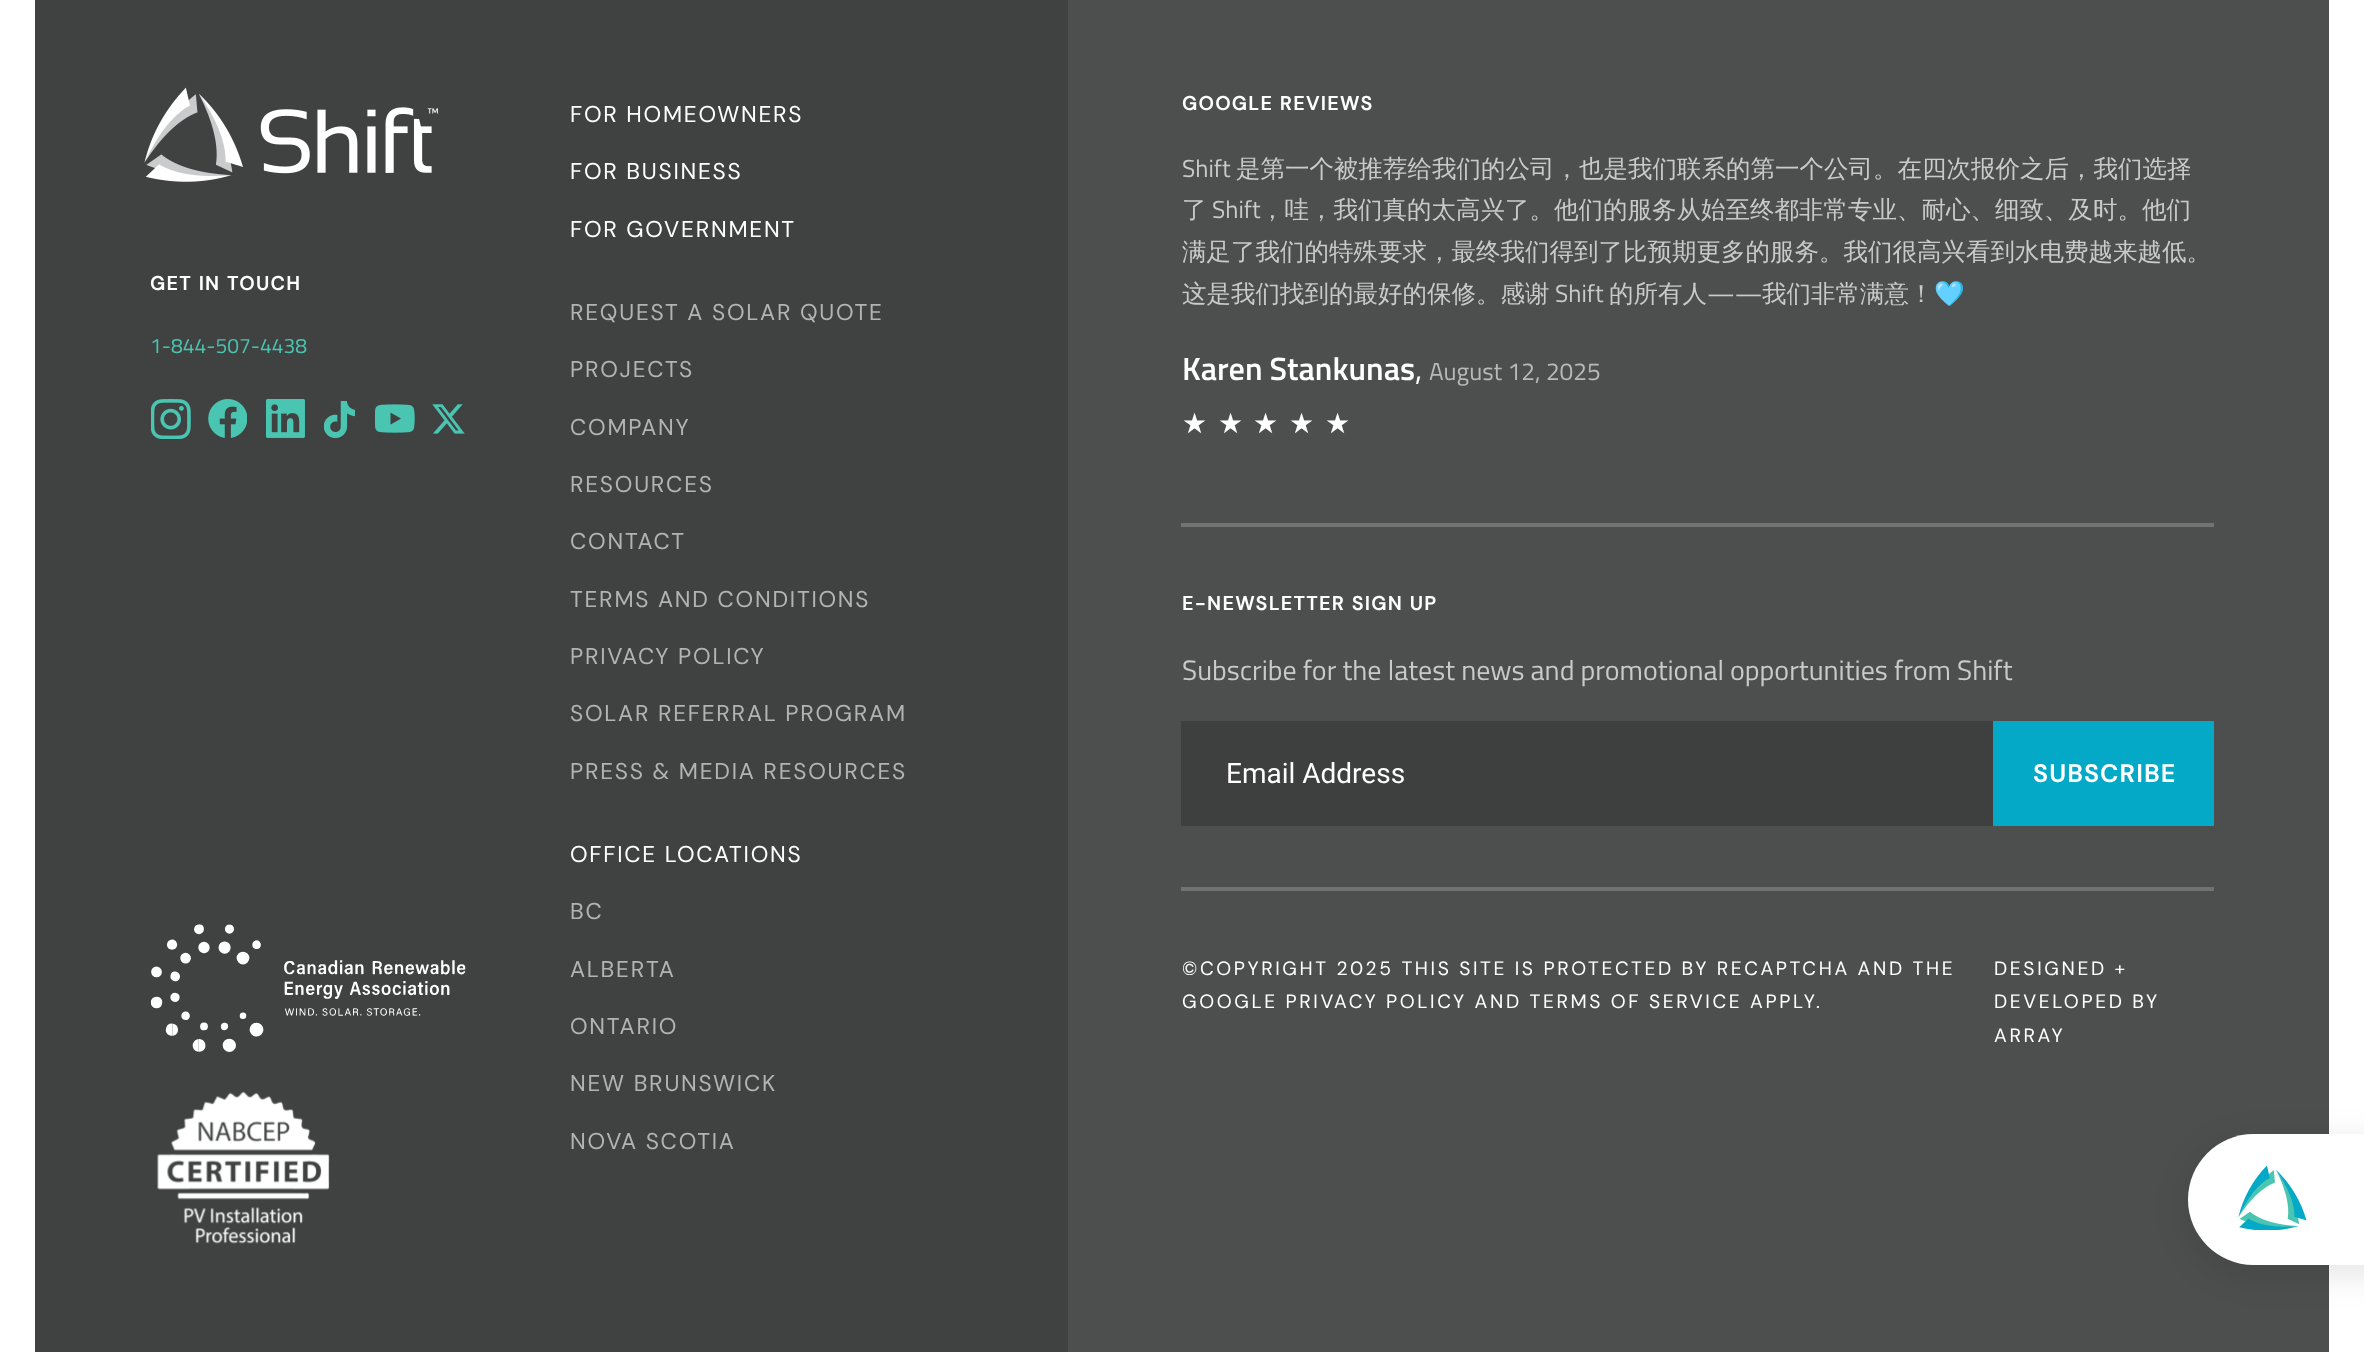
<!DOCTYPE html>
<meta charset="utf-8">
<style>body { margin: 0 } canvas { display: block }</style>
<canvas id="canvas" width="2364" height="1352"></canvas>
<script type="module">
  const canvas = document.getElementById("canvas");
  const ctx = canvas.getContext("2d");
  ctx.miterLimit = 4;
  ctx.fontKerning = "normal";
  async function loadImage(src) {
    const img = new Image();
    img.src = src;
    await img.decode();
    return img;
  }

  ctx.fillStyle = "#ffffff";
  ctx.fillRect(0, 0, 2364, 1352);
  ctx.fillStyle = "#404242";
  ctx.fillRect(35, 0, 1033, 1352);
  ctx.drawImage(await loadImage("img1.png"), 144, 87, 294, 95);
  ctx.letterSpacing = "1.75px";
  ctx.font = "bold 19.25px DM Sans";
  ctx.fillStyle = "#ffffff";
  ctx.fillText("GET IN TOUCH", 150, 290);
  ctx.letterSpacing = "0px";
  ctx.font = "21px Titillium Web";
  ctx.fillStyle = "#49c5b1";
  ctx.fillText("1-844-507-4438", 150, 353);
  ctx.drawImage(await loadImage("img2.png"), 151, 399, 40, 40);
  ctx.drawImage(await loadImage("img3.png"), 208, 399, 39, 39);
  ctx.drawImage(await loadImage("img4.png"), 266, 399, 39, 39);
  ctx.drawImage(await loadImage("img5.png"), 324, 401, 31, 37);
  ctx.drawImage(await loadImage("img6.png"), 375, 404, 40, 29);
  ctx.drawImage(await loadImage("img7.png"), 432, 404, 33, 30);
  ctx.drawImage(await loadImage("img8.png"), 151, 924, 315, 128);
  ctx.drawImage(await loadImage("img9.png"), 157, 1091, 173, 153);
  ctx.letterSpacing = "1.75px";
  ctx.font = "22.75px DM Sans";
  ctx.fillStyle = "#ffffff";
  ctx.fillText("FOR HOMEOWNERS", 570, 122);
  ctx.fillText("FOR BUSINESS", 570, 179);
  ctx.fillText("FOR GOVERNMENT", 570, 237);
  ctx.fillStyle = "#b3b3b3";
  ctx.fillText("REQUEST A SOLAR QUOTE", 570, 320);
  ctx.fillText("PROJECTS", 570, 377);
  ctx.fillText("COMPANY", 570, 435);
  ctx.fillText("RESOURCES", 570, 492);
  ctx.fillText("CONTACT", 570, 549);
  ctx.fillText("TERMS AND CONDITIONS", 570, 607);
  ctx.fillText("PRIVACY POLICY", 570, 664);
  ctx.fillText("SOLAR REFERRAL PROGRAM", 570, 721);
  ctx.fillText("PRESS & MEDIA RESOURCES", 570, 779);
  ctx.fillStyle = "#ffffff";
  ctx.fillText("OFFICE LOCATIONS", 570, 862);
  ctx.fillStyle = "#b3b3b3";
  ctx.fillText("BC", 570, 919);
  ctx.fillText("ALBERTA", 570, 977);
  ctx.fillText("ONTARIO", 570, 1034);
  ctx.fillText("NEW BRUNSWICK", 570, 1091);
  ctx.fillText("NOVA SCOTIA", 570, 1149);
  ctx.fillStyle = "#4d4f4f";
  ctx.fillRect(1068, 0, 1261, 1352);
  ctx.font = "bold 19.25px DM Sans";
  ctx.fillStyle = "#ffffff";
  ctx.fillText("GOOGLE REVIEWS", 1182, 110);
  ctx.letterSpacing = "0px";
  ctx.font = "24.5px Titillium Web";
  ctx.fillStyle = "#cacaca";
  ctx.fillText("Shift", 1182, 177);
  ctx.font = "500 24.5px WenQuanYi Zen Hei";
  ctx.fillText("是第一个被推荐给我们的公司，也是我们联系的第一个公司。在四次报价之后，我们选择", 1236, 177);
  ctx.fillText("了", 1182, 218);
  ctx.font = "24.5px Titillium Web";
  ctx.fillText("Shift", 1212, 218);
  ctx.font = "500 24.5px WenQuanYi Zen Hei";
  ctx.fillText("，哇，我们真的太高兴了。他们的服务从始至终都非常专业、耐心、细致、及时。他们", 1260, 218);
  ctx.fillText("满足了我们的特殊要求，最终我们得到了比预期更多的服务。我们很高兴看到水电费越来越低。", 1182, 260);
  ctx.fillText("这是我们找到的最好的保修。感谢", 1182, 302);
  ctx.font = "24.5px Titillium Web";
  ctx.fillText("Shift", 1555, 302);
  ctx.font = "500 24.5px WenQuanYi Zen Hei";
  ctx.fillText("的所有人", 1609, 302);
  ctx.font = "24.5px Titillium Web";
  ctx.fillText("——", 1707, 302);
  ctx.font = "500 24.5px WenQuanYi Zen Hei";
  ctx.fillText("我们非常满意！", 1762, 302);
  ctx.font = "24.5px Noto Color Emoji";
  ctx.fillText("🩵", 1934, 302);
  ctx.font = "600 32.25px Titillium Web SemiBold";
  ctx.fillStyle = "#ffffff";
  ctx.fillText("Karen Stankunas", 1182, 380);
  ctx.font = "32.25px Titillium Web";
  ctx.fillText(",", 1415, 380);
  ctx.font = "24.5px Titillium Web";
  ctx.fillStyle = "#b8b9b9";
  ctx.fillText("August 12, 2025", 1429, 380);
  ctx.font = "28px DejaVu Sans";
  ctx.fillStyle = "#ffffff";
  ctx.fillText("★", 1182, 433);
  ctx.fillText("★", 1218, 433);
  ctx.fillText("★", 1253, 433);
  ctx.fillText("★", 1289, 433);
  ctx.fillText("★", 1325, 433);
  ctx.fillStyle = "#717272";
  ctx.fillRect(1181, 523, 1033, 4);
  ctx.fillRect(1181, 887, 1033, 4);
  ctx.letterSpacing = "1.75px";
  ctx.font = "bold 19.25px DM Sans";
  ctx.fillStyle = "#ffffff";
  ctx.fillText("E-NEWSLETTER SIGN UP", 1182, 610);
  ctx.letterSpacing = "0px";
  ctx.font = "28px Titillium Web";
  ctx.fillStyle = "#cacaca";
  ctx.fillText("Subscribe for the latest news and promotional opportunities from Shift", 1182, 680);
  ctx.fillStyle = "#3e3f3f";
  ctx.fillRect(1181, 721, 812, 105);
  ctx.font = "28px Roboto";
  ctx.fillStyle = "#ffffff";
  ctx.fillText("Email Address", 1226, 783);
  ctx.fillStyle = "#04a9c7";
  ctx.fillRect(1993, 721, 221, 105);
  ctx.letterSpacing = "1.75px";
  ctx.font = "bold 24.5px DM Sans";
  ctx.fillStyle = "#ffffff";
  ctx.fillText("SUBSCRIBE", 2033, 782);
  ctx.letterSpacing = "2.62px";
  ctx.font = "19.25px DM Sans";
  ctx.fillText("©COPYRIGHT 2025 THIS SITE IS PROTECTED BY RECAPTCHA AND THE", 1182, 975);
  ctx.fillText("GOOGLE PRIVACY POLICY AND TERMS OF SERVICE APPLY.", 1182, 1008);
  ctx.fillText("DESIGNED +", 1994, 975);
  ctx.fillText("DEVELOPED BY", 1994, 1008);
  ctx.fillText("ARRAY", 1994, 1042);
  ctx.fillStyle = "rgba(0, 0, 0, 0.1)";
  ctx.filter = "blur(17.5px)";
  ctx.beginPath();
  ctx.roundRect(2188, 1143, 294, 131, 65.5);
  ctx.fill();
  ctx.filter = "none";
  ctx.fillStyle = "#ffffff";
  ctx.beginPath();
  ctx.moveTo(2253.5, 1134);
  ctx.lineTo(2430, 1134);
  ctx.lineTo(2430, 1265);
  ctx.lineTo(2253.5, 1265);
  ctx.bezierCurveTo(2217.5, 1265, 2188, 1235.5, 2188, 1199.5);
  ctx.bezierCurveTo(2188, 1163.5, 2217.5, 1134, 2253.5, 1134);
  ctx.closePath();
  ctx.fill();
  ctx.drawImage(await loadImage("img10.png"), 2238, 1166, 69, 64);
</script>
